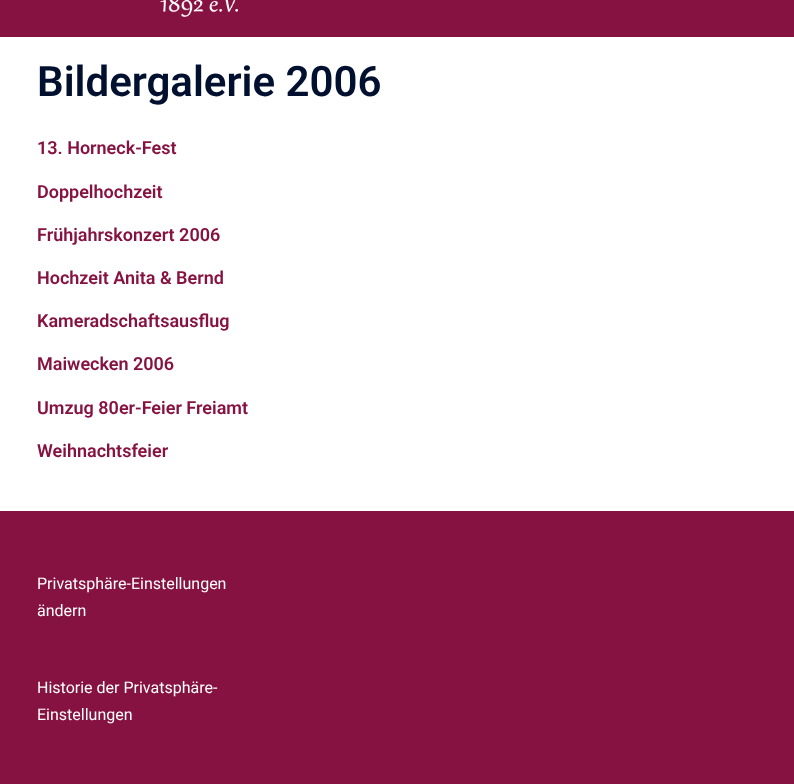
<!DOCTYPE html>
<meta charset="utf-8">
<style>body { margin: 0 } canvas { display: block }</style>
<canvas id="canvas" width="794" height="784"></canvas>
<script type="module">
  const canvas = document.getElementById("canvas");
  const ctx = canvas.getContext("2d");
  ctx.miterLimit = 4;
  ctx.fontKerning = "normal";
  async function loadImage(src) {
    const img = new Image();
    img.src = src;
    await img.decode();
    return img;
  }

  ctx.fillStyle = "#ffffff";
  ctx.fillRect(0, 0, 794, 784);
  ctx.fillStyle = "#861241";
  ctx.fillRect(0, 0, 794, 37);
  ctx.drawImage(await loadImage("img1.png"), 160, 0, 78, 17);
  ctx.font = "600 42px Roboto";
  ctx.fillStyle = "#00102e";
  ctx.fillText("Bildergalerie 2006", 37, 96);
  ctx.font = "600 18px Roboto";
  ctx.fillStyle = "#861241";
  ctx.fillText("13. Horneck-Fest", 37, 154);
  ctx.fillText("Doppelhochzeit", 37, 198);
  ctx.fillText("Frühjahrskonzert 2006", 37, 241);
  ctx.fillText("Hochzeit Anita & Bernd", 37, 284);
  ctx.fillText("Kameradschaftsausflug", 37, 327);
  ctx.fillText("Maiwecken 2006", 37, 370);
  ctx.fillText("Umzug 80er-Feier Freiamt", 37, 414);
  ctx.fillText("Weihnachtsfeier", 37, 457);
  ctx.fillRect(0, 511, 794, 273);
  ctx.font = "16px Roboto";
  ctx.fillStyle = "#ffffff";
  ctx.fillText("Privatsphäre-Einstellungen", 37, 589);
  ctx.fillText("ändern", 37, 616);
  ctx.fillText("Historie der Privatsphäre-", 37, 693);
  ctx.fillText("Einstellungen", 37, 720);
</script>
